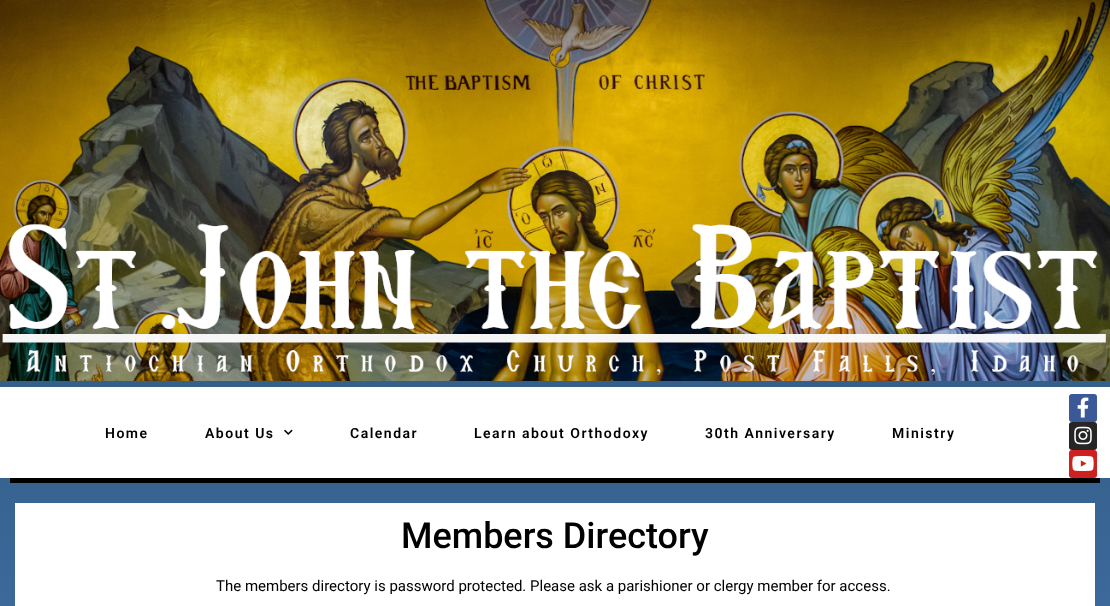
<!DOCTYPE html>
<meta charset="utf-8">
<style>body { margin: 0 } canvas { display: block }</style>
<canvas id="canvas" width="1110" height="606"></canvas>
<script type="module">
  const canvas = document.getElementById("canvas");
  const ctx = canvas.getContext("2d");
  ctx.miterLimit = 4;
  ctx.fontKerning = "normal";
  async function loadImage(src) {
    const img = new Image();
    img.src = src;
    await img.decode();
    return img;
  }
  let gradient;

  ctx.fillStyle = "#ffffff";
  ctx.fillRect(0, 0, 1110, 606);
  gradient = ctx.createLinearGradient(555, 0, 555, 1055);
  gradient.addColorStop(0, "#27506b");
  gradient.addColorStop(1, "#4b7abe");
  ctx.fillStyle = gradient;
  ctx.fillRect(0, 381, 1110, 225);
  ctx.drawImage(await loadImage("img1.png"), 0, 0, 1110, 381);
  ctx.fillStyle = "#ffffff";
  ctx.fillRect(0, 387, 1110, 91);
  ctx.fillStyle = "#3b5998";
  ctx.beginPath();
  ctx.roundRect(1069, 394, 28, 28, 3);
  ctx.fill();
  ctx.drawImage(await loadImage("img2.png"), 1077, 397, 12, 21);
  ctx.fillStyle = "#262626";
  ctx.beginPath();
  ctx.roundRect(1069, 422, 28, 28, 3);
  ctx.fill();
  ctx.drawImage(await loadImage("img3.png"), 1074, 426, 18, 19);
  ctx.fillStyle = "#cd201f";
  ctx.beginPath();
  ctx.roundRect(1069, 450, 28, 28, 3);
  ctx.fill();
  ctx.drawImage(await loadImage("img4.png"), 1072, 456, 22, 15);
  ctx.letterSpacing = "1.5px";
  ctx.font = "600 14px Roboto";
  ctx.fillStyle = "#000000";
  ctx.fillText("Home", 105, 438);
  ctx.fillText("About Us", 205, 438);
  ctx.drawImage(await loadImage("img5.png"), 284, 429, 9, 6);
  ctx.fillText("Calendar", 350, 438);
  ctx.fillText("Learn about Orthodoxy", 474, 438);
  ctx.fillText("30th Anniversary", 705, 438);
  ctx.fillText("Ministry", 892, 438);
  ctx.fillRect(10, 478, 1090, 5);
  ctx.fillStyle = "#ffffff";
  ctx.fillRect(15, 503, 1080, 103);
  ctx.letterSpacing = "0px";
  ctx.font = "500 36px Roboto";
  ctx.fillStyle = "#000000";
  ctx.fillText("Members Directory", 401, 548);
  ctx.font = "15px Roboto";
  ctx.fillText("The members directory is password protected. Please ask a parishioner or clergy member for access.", 216, 591);
</script>
